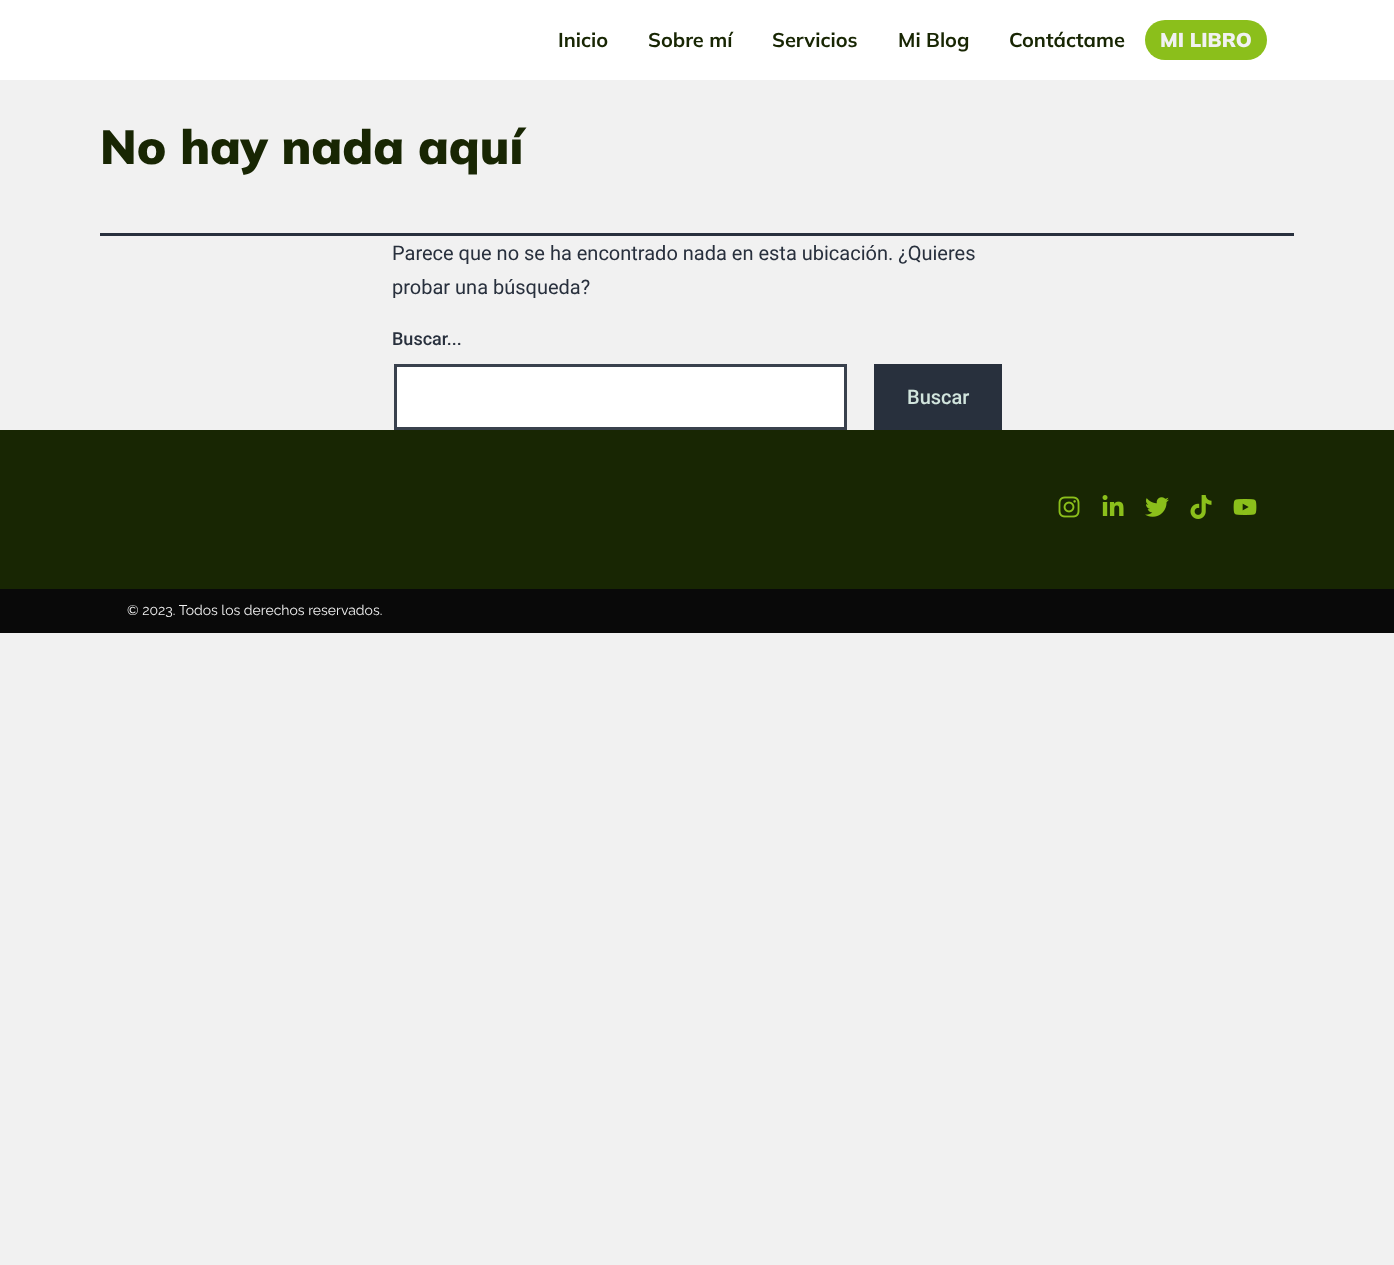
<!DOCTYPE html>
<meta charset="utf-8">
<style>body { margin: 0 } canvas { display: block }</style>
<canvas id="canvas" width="1394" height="1265"></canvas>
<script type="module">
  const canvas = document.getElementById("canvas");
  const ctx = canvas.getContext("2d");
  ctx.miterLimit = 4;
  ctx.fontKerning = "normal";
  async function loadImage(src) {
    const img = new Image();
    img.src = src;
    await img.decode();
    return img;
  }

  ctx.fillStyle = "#f1f1f1";
  ctx.fillRect(0, 0, 1394, 1265);
  ctx.fillStyle = "#ffffff";
  ctx.fillRect(0, 0, 1394, 80);
  ctx.font = "bold 20px Mulish";
  ctx.fillStyle = "#182603";
  ctx.fillText("Inicio", 558, 47);
  ctx.fillText("Sobre mí", 648, 47);
  ctx.fillText("Servicios", 772, 47);
  ctx.fillText("Mi Blog", 898, 47);
  ctx.fillText("Contáctame", 1009, 47);
  ctx.fillStyle = "#8bbf1b";
  ctx.beginPath();
  ctx.roundRect(1145, 20, 122, 40, 20);
  ctx.fill();
  ctx.font = "900 20px Mulish";
  ctx.fillStyle = "#f1f1f1";
  ctx.fillText("MI LIBRO", 1160, 47);
  ctx.fillStyle = "#28303d";
  ctx.fillRect(100, 233, 1194, 3);
  ctx.font = "900 48px Mulish";
  ctx.fillStyle = "#182603";
  ctx.fillText("No hay nada aquí", 100, 164);
  ctx.font = "20px Roboto";
  ctx.fillStyle = "#28303d";
  ctx.fillText("Parece que no se ha encontrado nada en esta ubicación. ¿Quieres", 392, 260);
  ctx.fillText("probar una búsqueda?", 392, 294);
  ctx.font = "500 18px Roboto";
  ctx.fillText("Buscar...", 392, 345);
  ctx.fillStyle = "#ffffff";
  ctx.beginPath();
  ctx.rect(395.5, 365.5, 450, 63);
  ctx.fill();
  ctx.strokeStyle = "#39414d";
  ctx.lineWidth = 3;
  ctx.stroke();
  ctx.fillStyle = "#28303d";
  ctx.fillRect(874, 364, 128, 66);
  ctx.font = "500 20px Roboto";
  ctx.fillStyle = "#d1e4dd";
  ctx.fillText("Buscar", 907, 404);
  ctx.fillStyle = "#182603";
  ctx.fillRect(0, 430, 1394, 159);
  ctx.drawImage(await loadImage("img1.png"), 1058, 496, 22, 22);
  ctx.drawImage(await loadImage("img2.png"), 1102, 495, 22, 21);
  ctx.drawImage(await loadImage("img3.png"), 1145, 497, 24, 20);
  ctx.drawImage(await loadImage("img4.png"), 1190, 495, 22, 24);
  ctx.drawImage(await loadImage("img5.png"), 1233, 499, 24, 16);
  ctx.fillStyle = "#090909";
  ctx.fillRect(0, 589, 1394, 44);
  ctx.font = "14px Raleway";
  ctx.fillStyle = "#f1f1f1";
  ctx.fillText("© 2023. Todos los derechos reservados.", 127, 615);
</script>
